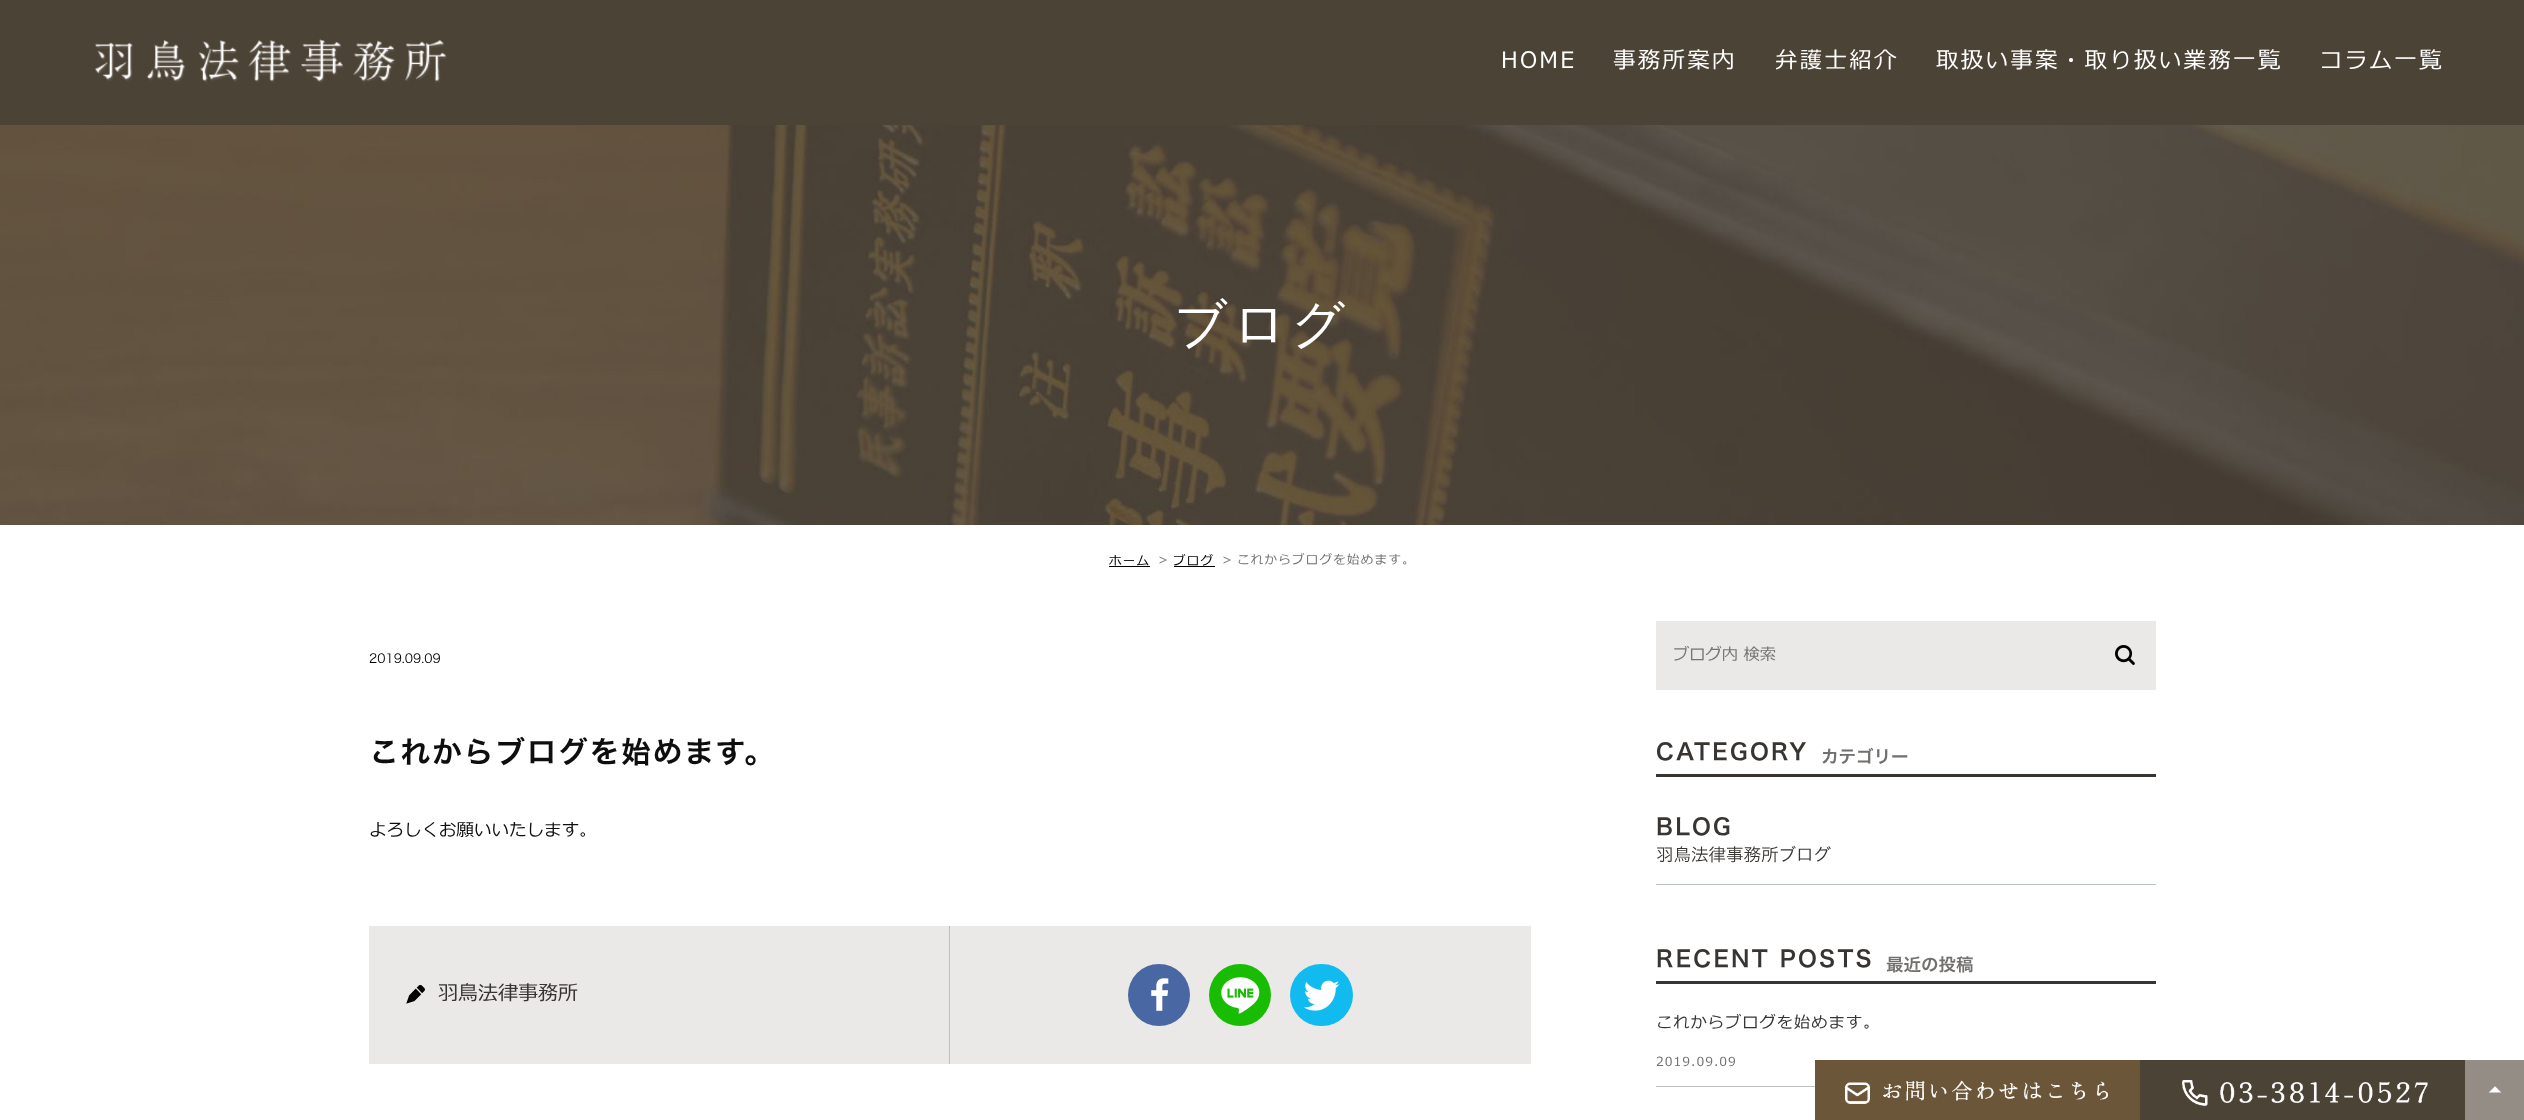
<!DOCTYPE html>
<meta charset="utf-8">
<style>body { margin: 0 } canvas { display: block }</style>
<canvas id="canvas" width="2524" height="1120"></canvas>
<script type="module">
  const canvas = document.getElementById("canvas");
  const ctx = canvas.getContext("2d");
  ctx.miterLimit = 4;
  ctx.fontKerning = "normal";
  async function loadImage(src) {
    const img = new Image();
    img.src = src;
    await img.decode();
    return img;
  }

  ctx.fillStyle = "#ffffff";
  ctx.fillRect(0, 0, 2524, 1120);
  ctx.fillStyle = "#4c4337";
  ctx.fillRect(0, 0, 2524, 125);
  ctx.drawImage(await loadImage("img1.png"), 94, 39, 353, 44);
  ctx.letterSpacing = "2.25px";
  ctx.font = "22.5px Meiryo";
  ctx.fillStyle = "#ffffff";
  ctx.fillText("HOME", 1501, 68);
  ctx.fillText("事務所案内", 1613, 68);
  ctx.fillText("弁護士紹介", 1775, 68);
  ctx.fillText("取扱い事案・取り扱い業務一覧", 1936, 68);
  ctx.fillText("コラム一覧", 2320, 68);
  ctx.drawImage(await loadImage("img2.png"), 0, 125, 2524, 400);
  ctx.letterSpacing = "5px";
  ctx.font = "500 52.5px WenQuanYi Zen Hei";
  ctx.fillText("ブログ", 1174, 342);
  ctx.letterSpacing = "1.25px";
  ctx.font = "12.5px Meiryo";
  ctx.fillStyle = "#000000";
  ctx.fillText("ホーム", 1109, 565);
  ctx.fillRect(1109, 566, 41, 1);
  ctx.fillStyle = "#72706e";
  ctx.fillText(">", 1158, 564);
  ctx.fillStyle = "#000000";
  ctx.fillText("ブログ", 1173, 565);
  ctx.fillRect(1174, 566, 41, 1);
  ctx.fillStyle = "#72706e";
  ctx.fillText(">", 1222, 564);
  ctx.fillText("これからブログを始めます。", 1237, 564);
  ctx.letterSpacing = "0px";
  ctx.font = "300 12.5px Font";
  ctx.fillStyle = "#000000";
  ctx.fillText("2019.09.09", 369, 663);
  ctx.letterSpacing = "1.5px";
  ctx.font = "600 30px Font";
  ctx.fillStyle = "#0f0e0e";
  ctx.fillText("これからブログを始めます。", 369, 763);
  ctx.letterSpacing = "0px";
  ctx.font = "17.5px Meiryo";
  ctx.fillText("よろしくお願いいたします。", 369, 836);
  ctx.fillStyle = "#ebe9e7";
  ctx.fillRect(369, 926, 1162, 138);
  ctx.fillStyle = "#bfbebd";
  ctx.fillRect(949, 926, 1, 138);
  ctx.drawImage(await loadImage("img3.png"), 406, 984, 19, 20);
  ctx.font = "20px Meiryo";
  ctx.fillStyle = "#373431";
  ctx.fillText("羽鳥法律事務所", 438, 1000);
  ctx.fillStyle = "#4967a3";
  ctx.beginPath();
  ctx.arc(1159, 995, 31, 0, Math.PI * 2);
  ctx.fill();
  ctx.drawImage(await loadImage("img4.png"), 1151, 978, 18, 33);
  ctx.fillStyle = "#18bc01";
  ctx.beginPath();
  ctx.arc(1240, 995, 31, 0, Math.PI * 2);
  ctx.fill();
  ctx.drawImage(await loadImage("img5.png"), 1221, 977, 39, 37);
  ctx.fillStyle = "#11bbef";
  ctx.beginPath();
  ctx.roundRect(1290, 964, 63, 62, 31);
  ctx.fill();
  ctx.drawImage(await loadImage("img6.png"), 1304, 980, 36, 31);
  ctx.fillStyle = "#ebe9e7";
  ctx.fillRect(1656, 621, 500, 69);
  ctx.font = "16.25px Meiryo";
  ctx.fillStyle = "#757575";
  ctx.fillText("ブログ内 検索", 1673, 660);
  ctx.drawImage(await loadImage("img7.png"), 2115, 645, 20, 20);
  ctx.fillStyle = "#373431";
  ctx.fillRect(1656, 774, 500, 3);
  ctx.letterSpacing = "2.25px";
  ctx.font = "600 22.5px Font";
  ctx.fillText("CATEGORY", 1656, 760);
  ctx.letterSpacing = "0px";
  ctx.font = "600 17.5px Font";
  ctx.fillStyle = "#72706e";
  ctx.fillText("カテゴリー", 1821, 763);
  ctx.fillStyle = "#b8c2c1";
  ctx.fillRect(1656, 884, 500, 1);
  ctx.letterSpacing = "2.25px";
  ctx.font = "600 22.5px Font";
  ctx.fillStyle = "#373431";
  ctx.fillText("BLOG", 1656, 835);
  ctx.letterSpacing = "0px";
  ctx.font = "300 17.5px Font";
  ctx.fillText("羽鳥法律事務所ブログ", 1656, 861);
  ctx.fillRect(1656, 981, 500, 3);
  ctx.letterSpacing = "2.25px";
  ctx.font = "600 22.5px Font";
  ctx.fillText("RECENT POSTS", 1656, 967);
  ctx.letterSpacing = "0px";
  ctx.font = "600 17.5px Font";
  ctx.fillStyle = "#72706e";
  ctx.fillText("最近の投稿", 1886, 971);
  ctx.fillStyle = "#bfbebd";
  ctx.fillRect(1656, 1086, 159, 1);
  ctx.letterSpacing = "1px";
  ctx.font = "16.25px Meiryo";
  ctx.fillStyle = "#373431";
  ctx.fillText("これからブログを始めます。", 1656, 1028);
  ctx.font = "12.5px Meiryo";
  ctx.fillStyle = "#72706e";
  ctx.fillText("2019.09.09", 1656, 1066);
  ctx.drawImage(await loadImage("img8.png"), 1815, 1060, 325, 60);
  ctx.drawImage(await loadImage("img9.png"), 2140, 1060, 325, 60);
  ctx.drawImage(await loadImage("img10.png"), 2465, 1060, 59, 60);
</script>
